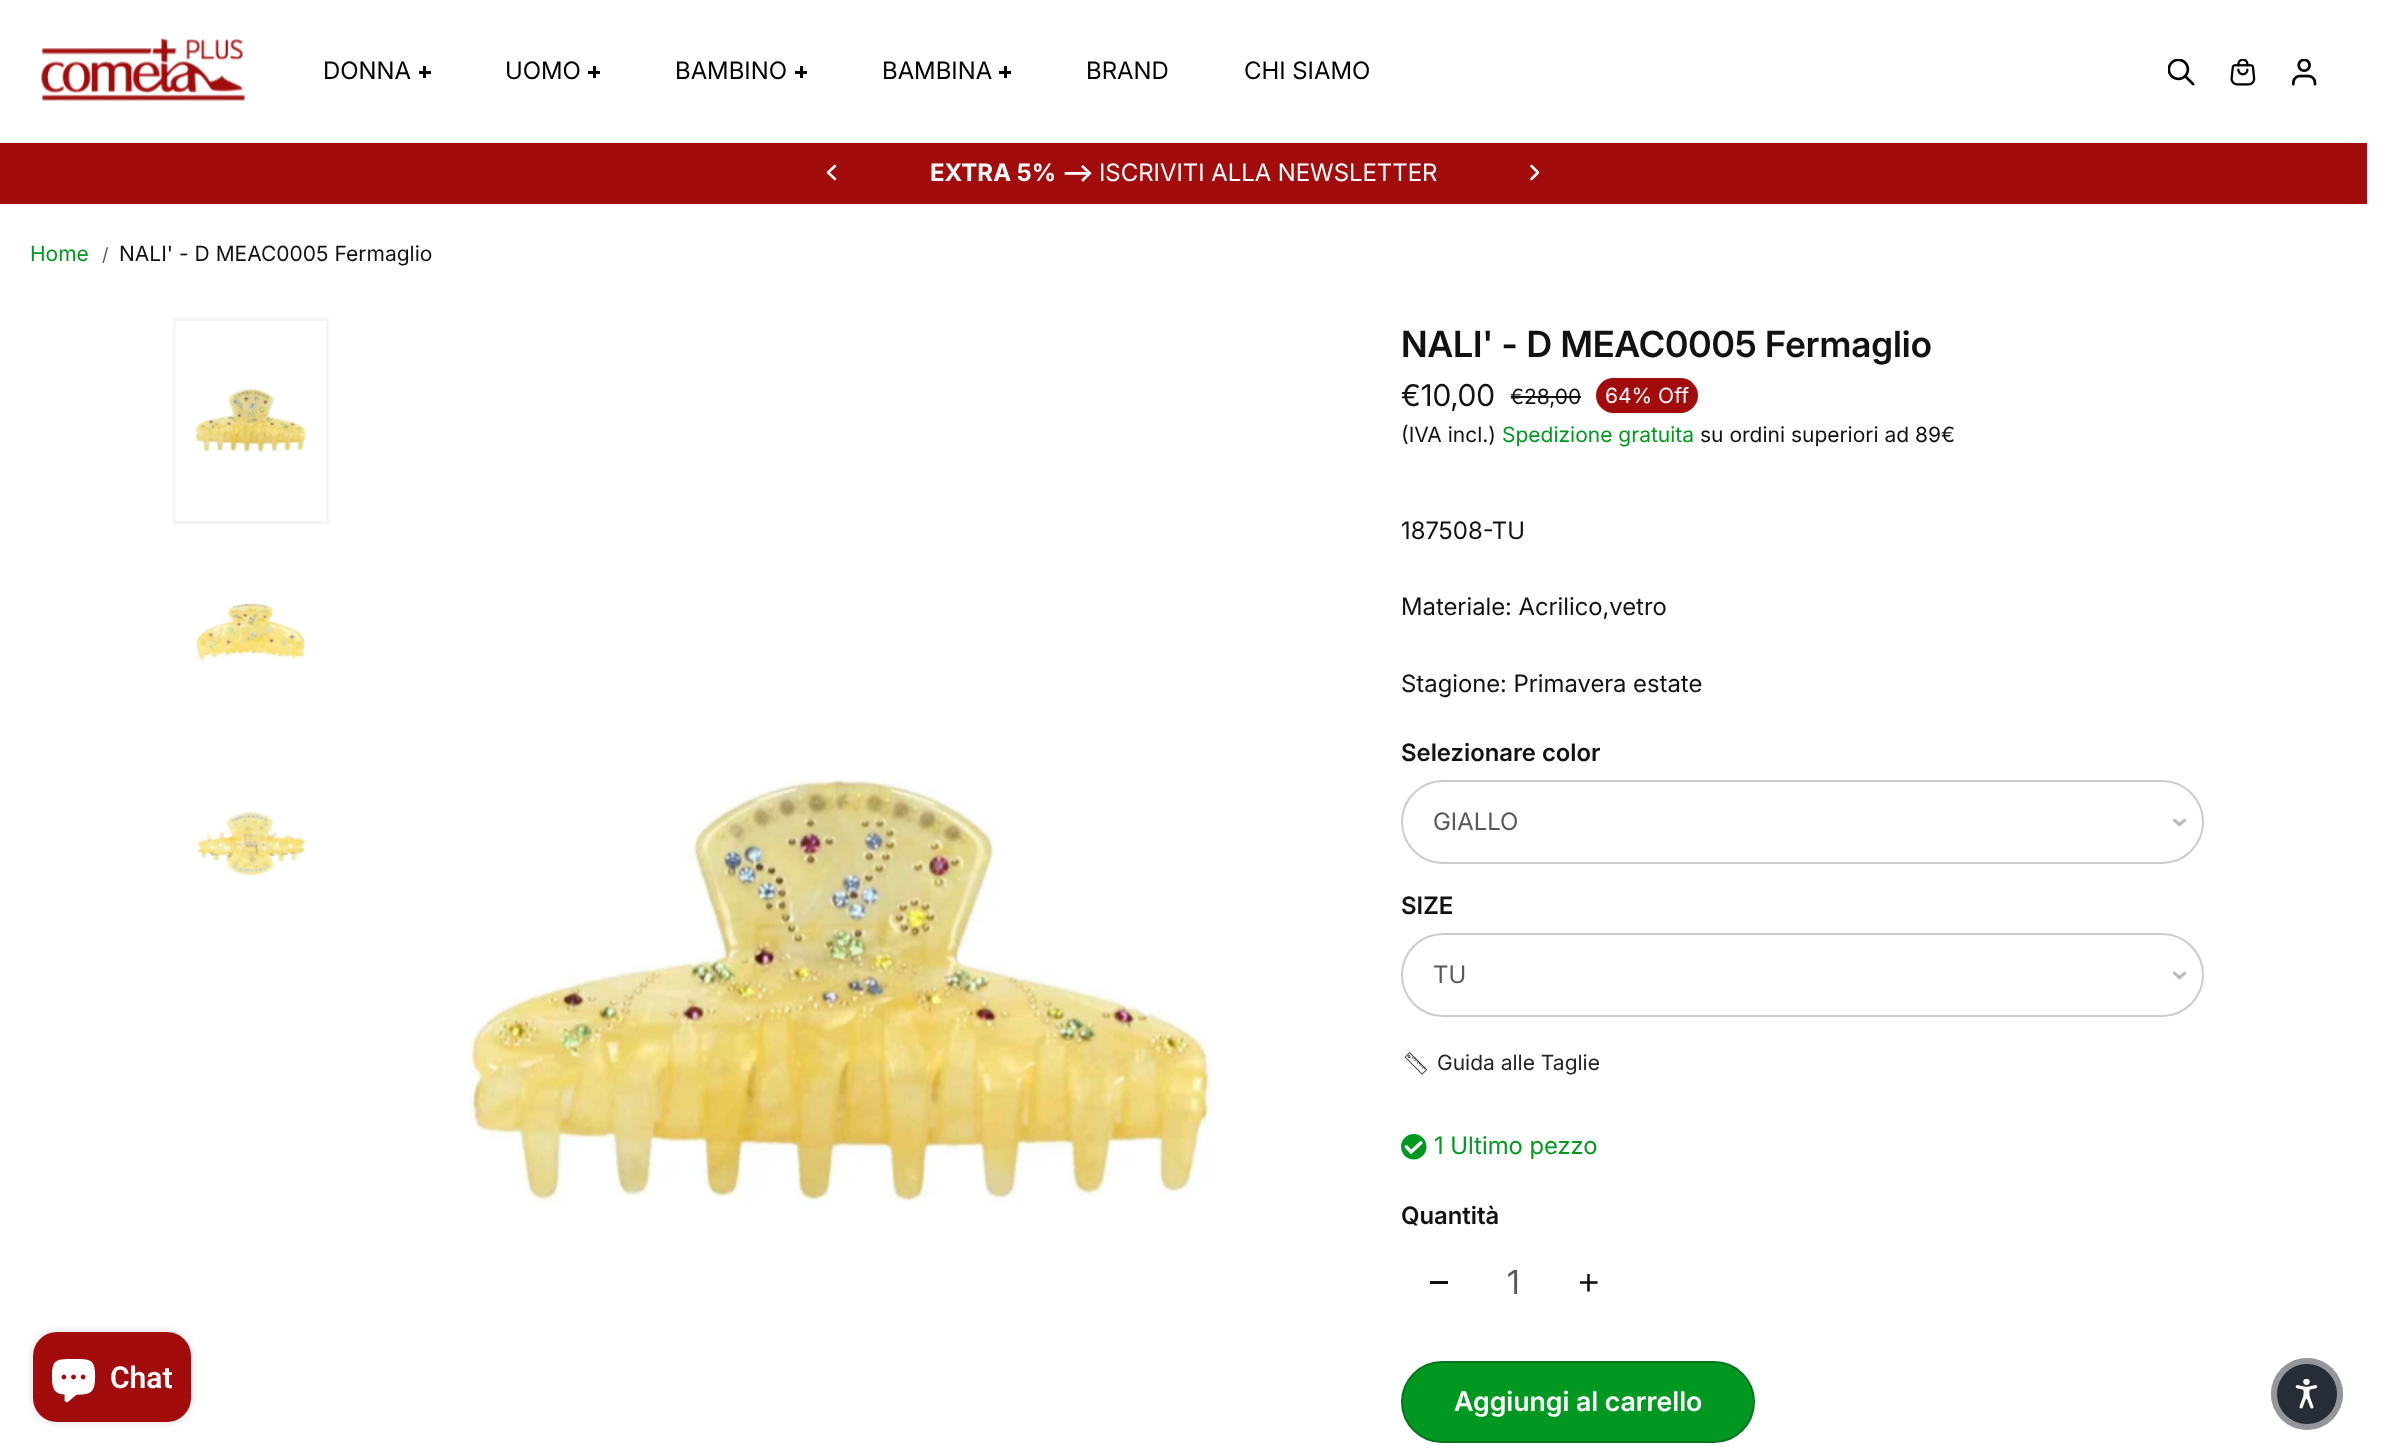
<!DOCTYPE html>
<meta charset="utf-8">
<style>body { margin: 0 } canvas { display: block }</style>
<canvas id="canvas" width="2382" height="1453"></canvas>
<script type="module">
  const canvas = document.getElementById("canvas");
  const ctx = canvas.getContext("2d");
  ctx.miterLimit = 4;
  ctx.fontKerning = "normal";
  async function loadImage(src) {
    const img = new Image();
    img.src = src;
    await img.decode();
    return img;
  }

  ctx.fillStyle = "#ffffff";
  ctx.fillRect(0, 0, 2382, 1453);
  ctx.drawImage(await loadImage("img1.png"), 41, 37, 204, 64);
  ctx.font = "24px 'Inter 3'";
  ctx.fillStyle = "#000000";
  ctx.fillText("DONNA", 323, 79);
  ctx.fillRect(419, 71, 12, 3);
  ctx.fillRect(423, 66, 3, 12);
  ctx.fillText("UOMO", 505, 79);
  ctx.fillRect(588, 71, 12, 3);
  ctx.fillRect(593, 66, 3, 12);
  ctx.fillText("BAMBINO", 675, 79);
  ctx.fillRect(795, 71, 12, 3);
  ctx.fillRect(800, 66, 3, 12);
  ctx.fillText("BAMBINA", 882, 79);
  ctx.fillRect(999, 71, 12, 3);
  ctx.fillRect(1004, 66, 3, 12);
  ctx.fillText("BRAND", 1086, 79);
  ctx.fillText("CHI SIAMO", 1244, 79);
  ctx.drawImage(await loadImage("img2.png"), 2168, 59, 27, 27);
  ctx.drawImage(await loadImage("img3.png"), 2230, 59, 26, 27);
  ctx.drawImage(await loadImage("img4.png"), 2292, 59, 25, 27);
  ctx.fillStyle = "#a20c0c";
  ctx.fillRect(0, 143, 2367, 61);
  ctx.beginPath();
  ctx.moveTo(835, 166);
  ctx.lineTo(828, 172.5);
  ctx.lineTo(835, 179);
  ctx.strokeStyle = "#ffffff";
  ctx.lineWidth = 2.5;
  ctx.lineCap = "round";
  ctx.lineJoin = "round";
  ctx.stroke();
  ctx.font = "bold 24px Inter";
  ctx.fillStyle = "#ffffff";
  ctx.fillText("EXTRA 5% -->", 930, 181);
  ctx.font = "24px 'Inter 3'";
  ctx.fillText("ISCRIVITI ALLA NEWSLETTER", 1099, 181);
  ctx.beginPath();
  ctx.moveTo(1531.5, 166);
  ctx.lineTo(1538, 172.5);
  ctx.lineTo(1531.5, 179);
  ctx.stroke();
  ctx.font = "21px Inter";
  ctx.fillStyle = "#009821";
  ctx.fillText("Home", 30, 261);
  ctx.font = "18px Inter";
  ctx.fillStyle = "#595959";
  ctx.fillText("/", 102, 261);
  ctx.font = "21px Inter";
  ctx.fillStyle = "#121212";
  ctx.fillText("NALI' - D MEAC0005 Fermaglio", 119, 261);
  ctx.strokeStyle = "#f4f4f4";
  ctx.lineWidth = 3;
  ctx.lineJoin = "miter";
  ctx.strokeRect(174.5, 319.5, 153, 203);
  ctx.drawImage(await loadImage("img5.png"), 175, 321, 131, 199);
  ctx.drawImage(await loadImage("img6.png"), 196, 602, 109, 59);
  ctx.drawImage(await loadImage("img7.png"), 197, 811, 112, 66);
  ctx.drawImage(await loadImage("img8.png"), 469, 779, 744, 428);
  ctx.drawImage(await loadImage("img9.png"), 472, 794, 737, 405);
  ctx.font = "600 36px Inter";
  ctx.fillText("NALI' - D MEAC0005 Fermaglio", 1401, 357);
  ctx.font = "30px 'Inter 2'";
  ctx.fillText("€10,00", 1401, 406);
  ctx.font = "21px Inter";
  ctx.fillText("€28,00", 1510, 404);
  ctx.fillRect(1511, 396, 70, 2);
  ctx.fillStyle = "#a20c0c";
  ctx.beginPath();
  ctx.roundRect(1596, 378, 102, 35, 17.5);
  ctx.fill();
  ctx.fillStyle = "#ffffff";
  ctx.fillText("64% Off", 1605, 403);
  ctx.fillStyle = "#121212";
  ctx.fillText("(IVA incl.)", 1401, 442);
  ctx.fillStyle = "#009821";
  ctx.fillText("Spedizione gratuita", 1502, 442);
  ctx.fillStyle = "#121212";
  ctx.fillText("su ordini superiori ad 89€", 1700, 442);
  ctx.font = "24px 'Inter 3'";
  ctx.fillText("187508-TU", 1401, 539);
  ctx.fillText("Materiale: Acrilico,vetro", 1401, 615);
  ctx.fillText("Stagione: Primavera estate", 1401, 692);
  ctx.font = "600 24px 'Inter 2'";
  ctx.fillText("Selezionare color", 1401, 761);
  ctx.drawImage(await loadImage("img10.png"), 2172, 817, 15, 10);
  ctx.beginPath();
  ctx.roundRect(1402, 781, 801, 82, 41);
  ctx.strokeStyle = "#cccccc";
  ctx.lineWidth = 2;
  ctx.stroke();
  ctx.font = "24px 'Inter 3'";
  ctx.fillStyle = "#595959";
  ctx.fillText("GIALLO", 1433, 830);
  ctx.font = "600 24px 'Inter 2'";
  ctx.fillStyle = "#121212";
  ctx.fillText("SIZE", 1401, 914);
  ctx.drawImage(await loadImage("img10.png"), 2172, 970, 15, 10);
  ctx.beginPath();
  ctx.roundRect(1402, 934, 801, 82, 41);
  ctx.stroke();
  ctx.font = "24px 'Inter 3'";
  ctx.fillStyle = "#595959";
  ctx.fillText("TU", 1433, 983);
  ctx.drawImage(await loadImage("img11.png"), 1404, 1052, 23, 23);
  ctx.font = "21px Inter";
  ctx.fillStyle = "#232323";
  ctx.fillText("Guida alle Taglie", 1437, 1070);
  ctx.drawImage(await loadImage("img12.png"), 1401, 1134, 26, 26);
  ctx.font = "24px 'Inter 3'";
  ctx.fillStyle = "#009821";
  ctx.fillText("1 Ultimo pezzo", 1434, 1154);
  ctx.font = "600 24px 'Inter 2'";
  ctx.fillStyle = "#121212";
  ctx.fillText("Quantità", 1401, 1224);
  ctx.fillRect(1430, 1281, 18, 3);
  ctx.font = "33px 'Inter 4'";
  ctx.fillStyle = "#595959";
  ctx.fillText("1", 1507, 1294);
  ctx.drawImage(await loadImage("img13.png"), 1580, 1274, 18, 18);
  ctx.fillStyle = "#009821";
  ctx.beginPath();
  ctx.roundRect(1402, 1362, 352, 80, 40);
  ctx.fill();
  ctx.strokeStyle = "#05761e";
  ctx.stroke();
  ctx.font = "600 27px 'Inter 3'";
  ctx.fillStyle = "#ffffff";
  ctx.fillText("Aggiungi al carrello", 1454, 1411);
  ctx.fillStyle = "#272d36";
  ctx.beginPath();
  ctx.arc(2307, 1394, 36, 0, Math.PI * 2);
  ctx.fill();
  ctx.beginPath();
  ctx.arc(2307, 1394, 33, 0, Math.PI * 2);
  ctx.strokeStyle = "rgba(255, 255, 255, 0.5)";
  ctx.lineWidth = 6;
  ctx.stroke();
  ctx.drawImage(await loadImage("img14.png"), 2295, 1379, 23, 30);
  ctx.fillStyle = "rgba(0, 0, 0, 0.15)";
  ctx.filter = "blur(4px)";
  ctx.beginPath();
  ctx.roundRect(33, 1332, 158, 90, 24);
  ctx.fill();
  ctx.filter = "none";
  ctx.fillStyle = "#a20c0c";
  ctx.beginPath();
  ctx.roundRect(33, 1332, 158, 90, 24);
  ctx.fill();
  ctx.drawImage(await loadImage("img15.png"), 51, 1359, 45, 44);
  ctx.font = "600 30px Roboto";
  ctx.fillStyle = "#ffffff";
  ctx.fillText("Chat", 110, 1388);
</script>
